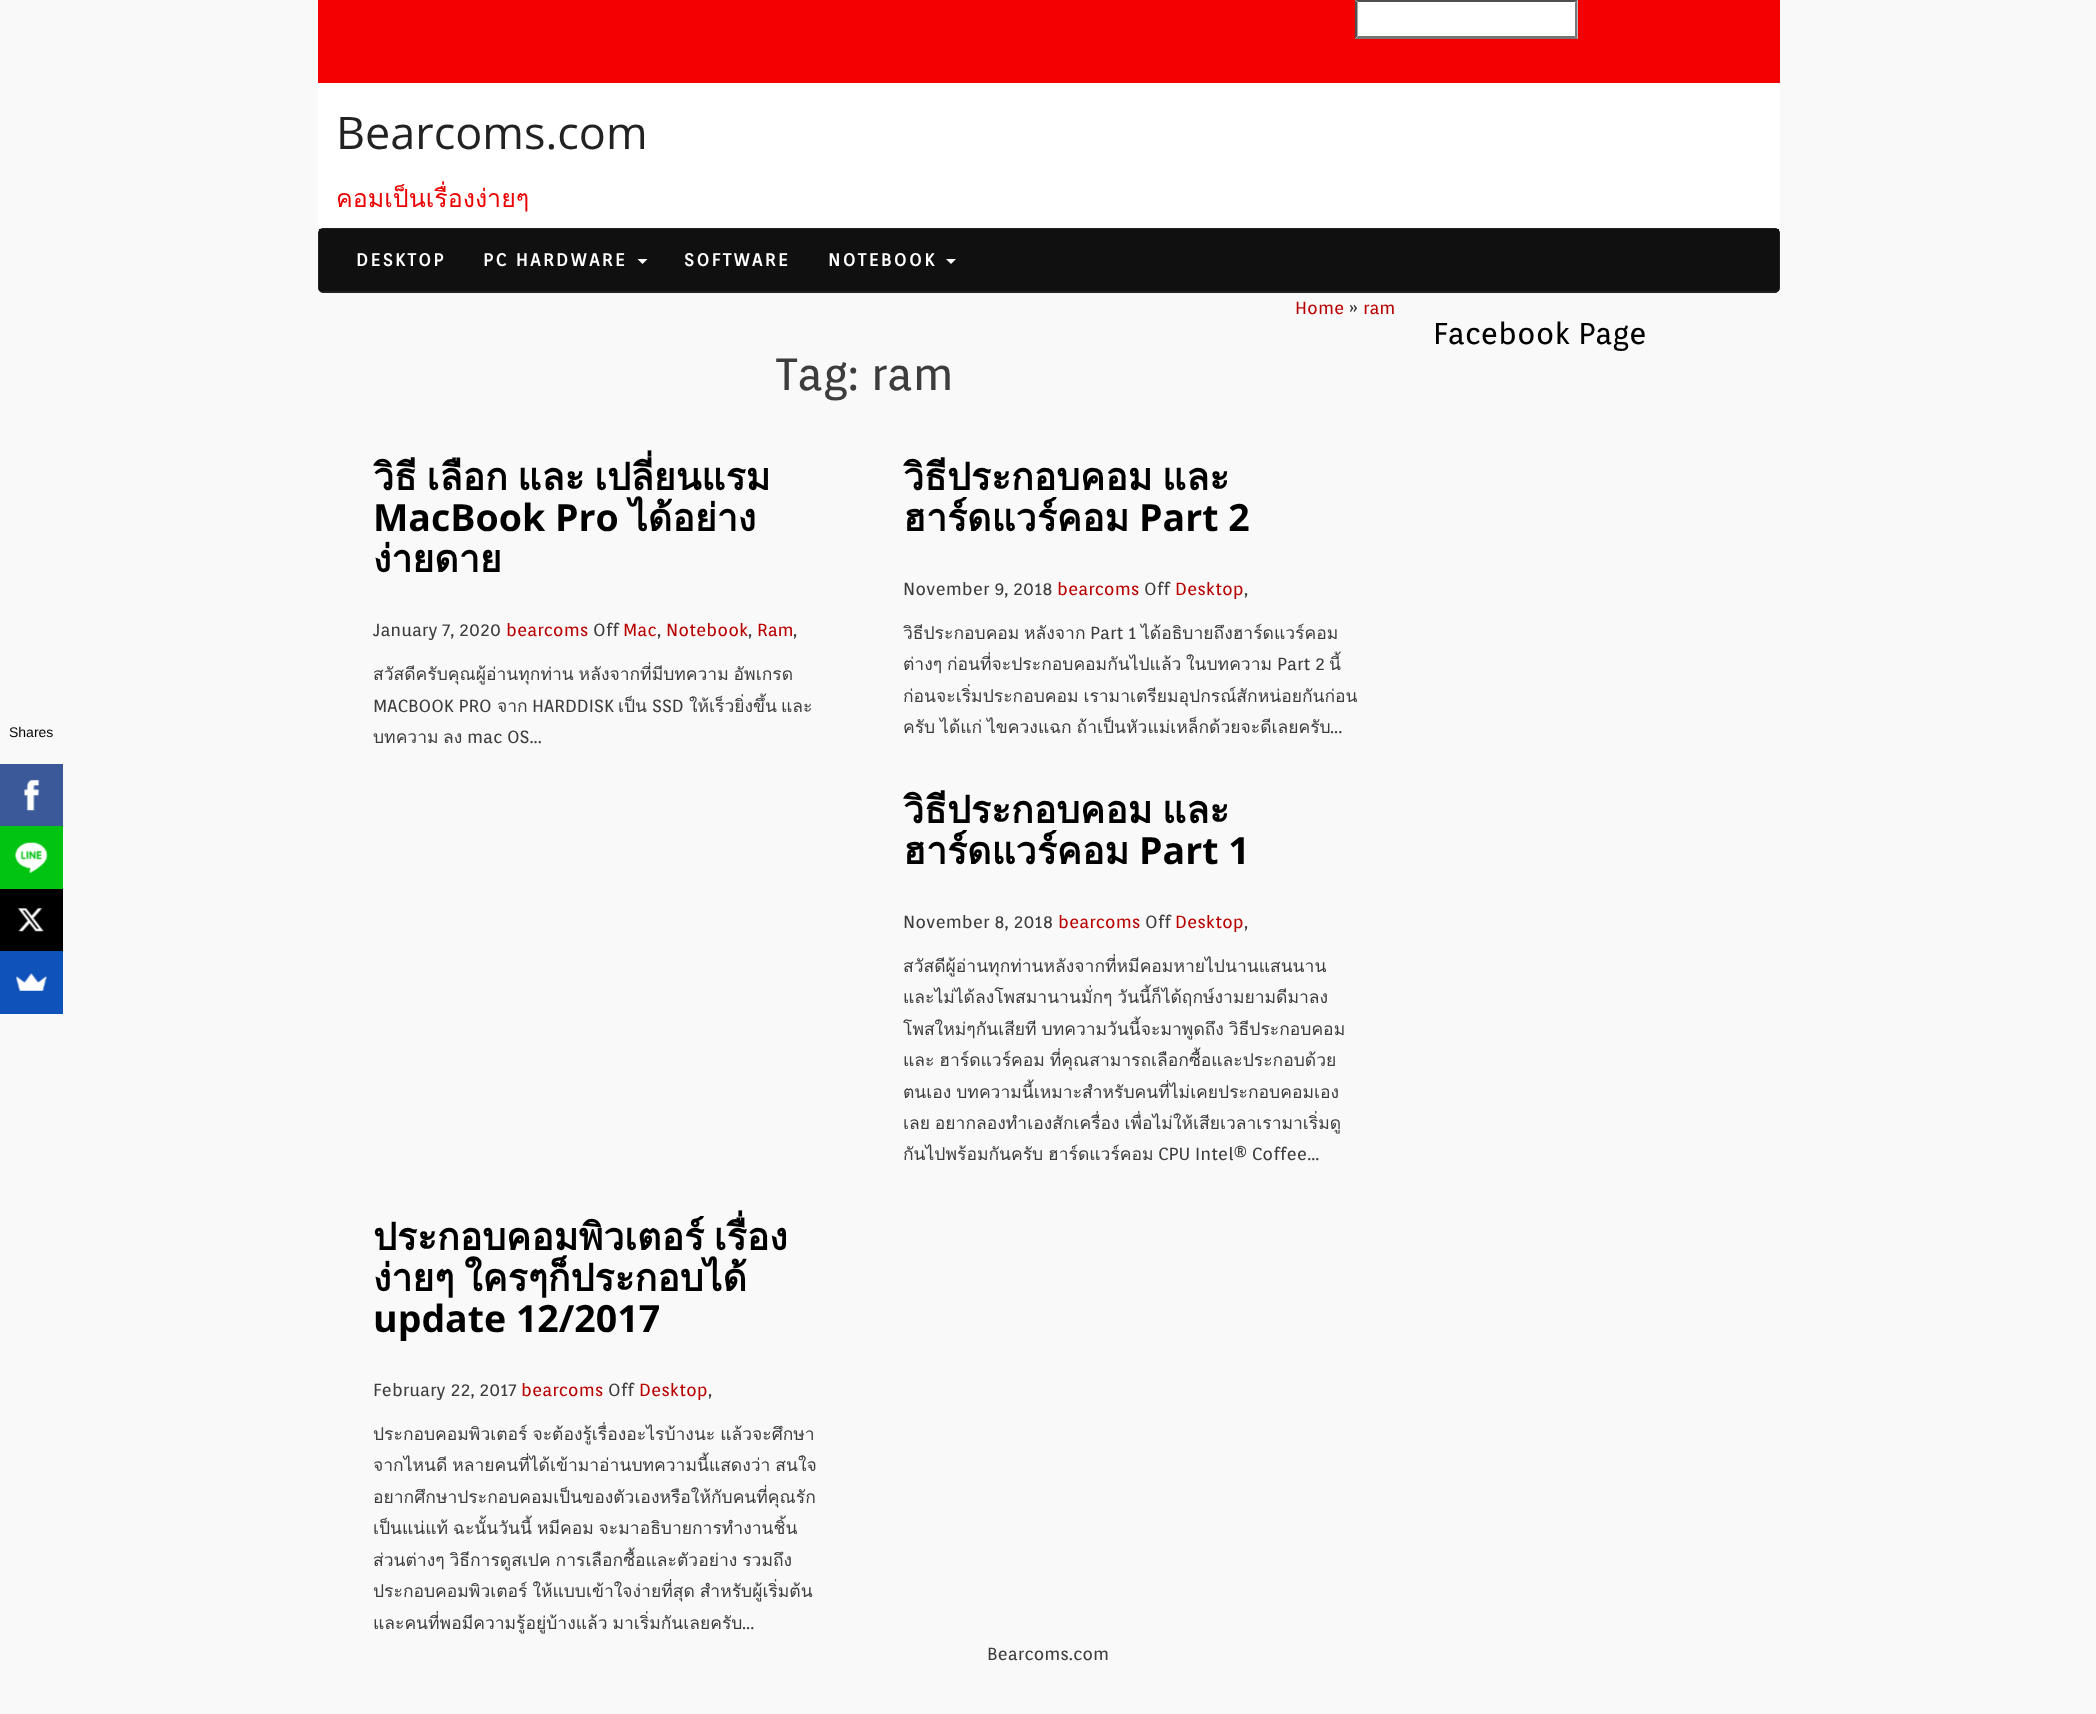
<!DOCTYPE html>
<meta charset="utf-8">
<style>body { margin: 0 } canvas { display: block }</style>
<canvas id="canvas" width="2096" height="1714"></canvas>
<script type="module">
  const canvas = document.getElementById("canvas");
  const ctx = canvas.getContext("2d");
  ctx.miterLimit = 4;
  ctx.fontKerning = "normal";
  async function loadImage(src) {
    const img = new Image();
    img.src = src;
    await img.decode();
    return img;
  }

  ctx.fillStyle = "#f9f9f9";
  ctx.fillRect(0, 0, 2096, 1714);
  ctx.font = "14px Liberation Sans";
  ctx.fillStyle = "#000000";
  ctx.fillText("Shares", 9, 737);
  ctx.fillStyle = "#3b5998";
  ctx.fillRect(0, 764, 63, 62);
  ctx.drawImage(await loadImage("img1.png"), 24, 779, 16, 32);
  ctx.fillStyle = "#01c312";
  ctx.fillRect(0, 826, 63, 63);
  ctx.drawImage(await loadImage("img2.png"), 15, 842, 33, 31);
  ctx.fillStyle = "#000000";
  ctx.fillRect(0, 889, 63, 62);
  ctx.drawImage(await loadImage("img3.png"), 17, 908, 27, 24);
  ctx.fillStyle = "#0f52ba";
  ctx.fillRect(0, 951, 63, 63);
  ctx.drawImage(await loadImage("img4.png"), 15, 973, 32, 18);
  ctx.fillStyle = "#ffffff";
  ctx.fillRect(318, 83, 1462, 145);
  ctx.fillStyle = "#f40000";
  ctx.fillRect(318, 0, 1462, 83);
  ctx.fillStyle = "#ffffff";
  ctx.fillRect(1355, 0, 223, 39);
  ctx.fillStyle = "#4f4f4f";
  ctx.beginPath();
  ctx.moveTo(1355, 0);
  ctx.lineTo(1578, 0);
  ctx.lineTo(1575, 2);
  ctx.lineTo(1358, 2);
  ctx.closePath();
  ctx.fill();
  ctx.fillStyle = "#767676";
  ctx.beginPath();
  ctx.moveTo(1577.5, 0);
  ctx.lineTo(1577.5, 39);
  ctx.lineTo(1575, 36);
  ctx.lineTo(1575, 2.5);
  ctx.closePath();
  ctx.fill();
  ctx.beginPath();
  ctx.moveTo(1578, 39);
  ctx.lineTo(1355, 39);
  ctx.lineTo(1358, 36);
  ctx.lineTo(1575, 36);
  ctx.closePath();
  ctx.fill();
  ctx.fillStyle = "#4f4f4f";
  ctx.beginPath();
  ctx.moveTo(1355, 39);
  ctx.lineTo(1355, 0);
  ctx.lineTo(1357.5, 2.5);
  ctx.lineTo(1357.5, 36);
  ctx.closePath();
  ctx.fill();
  ctx.font = "45px Open Sans";
  ctx.fillStyle = "#222222";
  ctx.fillText("Bearcoms.com", 336, 149);
  ctx.font = "25px Loma";
  ctx.fillStyle = "#ea0000";
  ctx.fillText("คอมเป็นเรื่องง่ายๆ", 336, 207);
  ctx.fillStyle = "#222222";
  ctx.beginPath();
  ctx.roundRect(318.5, 228.5, 1461, 64, 4.5);
  ctx.fill();
  ctx.strokeStyle = "#222222";
  ctx.stroke();
  ctx.fillStyle = "#101010";
  ctx.fillRect(319, 229, 1460, 62);
  ctx.letterSpacing = "2.5px";
  ctx.font = "bold 17.5px Orienta";
  ctx.fillStyle = "#ffffff";
  ctx.fillText("DESKTOP", 356, 266);
  ctx.fillText("PC HARDWARE", 483, 266);
  ctx.beginPath();
  ctx.moveTo(637.5, 259);
  ctx.lineTo(647.5, 259);
  ctx.lineTo(642.5, 264);
  ctx.closePath();
  ctx.fill();
  ctx.fillText("SOFTWARE", 684, 266);
  ctx.fillText("NOTEBOOK", 828, 266);
  ctx.beginPath();
  ctx.moveTo(946, 259);
  ctx.lineTo(956, 259);
  ctx.lineTo(951, 264);
  ctx.closePath();
  ctx.fill();
  ctx.letterSpacing = "0px";
  ctx.font = "17.5px Orienta";
  ctx.fillStyle = "#b90202";
  ctx.fillText("Home", 1295, 314);
  ctx.fillStyle = "#3d3d3d";
  ctx.fillText("»", 1349, 314);
  ctx.fillStyle = "#b90202";
  ctx.fillText("ram", 1363, 314);
  ctx.font = "45px Orienta";
  ctx.fillStyle = "#3d3d3d";
  ctx.fillText("Tag: ram", 776, 390);
  ctx.wordSpacing = "-3px";
  ctx.font = "bold 37.5px Loma";
  ctx.fillStyle = "#000000";
  ctx.fillText("วิธี เลือก และ เปลี่ยนแรม", 373, 490);
  ctx.wordSpacing = "0px";
  ctx.font = "bold 37.5px Open Sans";
  ctx.fillText("MacBook Pro", 373, 531);
  ctx.font = "bold 37.5px Loma";
  ctx.fillText("ได้อย่าง", 629, 531);
  ctx.fillText("ง่ายดาย", 373, 572);
  ctx.font = "17.5px Orienta";
  ctx.fillStyle = "#3d3d3d";
  ctx.fillText("January 7, 2020", 373, 636);
  ctx.fillStyle = "#b90202";
  ctx.fillText("bearcoms", 506, 636);
  ctx.fillStyle = "#3d3d3d";
  ctx.fillText("Off", 593, 636);
  ctx.fillStyle = "#b90202";
  ctx.fillText("Mac", 623, 636);
  ctx.fillStyle = "#3d3d3d";
  ctx.fillText(",", 657, 636);
  ctx.fillStyle = "#b90202";
  ctx.fillText("Notebook", 666, 636);
  ctx.fillStyle = "#3d3d3d";
  ctx.fillText(",", 748, 636);
  ctx.fillStyle = "#b90202";
  ctx.fillText("Ram", 757, 636);
  ctx.fillStyle = "#3d3d3d";
  ctx.fillText(",", 793, 636);
  ctx.wordSpacing = "-1px";
  ctx.font = "17.5px Loma";
  ctx.fillText("สวัสดีครับคุณผู้อ่านทุกท่าน หลังจากที่มีบทความ อัพเกรด", 373, 680);
  ctx.wordSpacing = "0px";
  ctx.font = "17.5px Orienta";
  ctx.fillText("MACBOOK PRO", 373, 712);
  ctx.font = "17.5px Loma";
  ctx.fillText("จาก", 497, 712);
  ctx.font = "17.5px Orienta";
  ctx.fillText("HARDDISK", 532, 712);
  ctx.font = "17.5px Loma";
  ctx.fillText("เป็น", 618, 712);
  ctx.font = "17.5px Orienta";
  ctx.fillText("SSD", 652, 712);
  ctx.font = "17.5px Loma";
  ctx.fillText("ให้เร็วยิ่งขึ้น", 689, 712);
  ctx.fillText("และ", 781, 712);
  ctx.fillText("บทความ", 373, 743);
  ctx.fillText("ลง", 443, 743);
  ctx.font = "17.5px Orienta";
  ctx.fillText("mac OS...", 467, 743);
  ctx.wordSpacing = "-3px";
  ctx.font = "bold 37.5px Loma";
  ctx.fillStyle = "#000000";
  ctx.fillText("วิธีประกอบคอม และ", 903, 490);
  ctx.wordSpacing = "0px";
  ctx.fillText("ฮาร์ดแวร์คอม", 903, 531);
  ctx.font = "bold 37.5px Open Sans";
  ctx.fillText("Part 2", 1139, 531);
  ctx.font = "17.5px Orienta";
  ctx.fillStyle = "#3d3d3d";
  ctx.fillText("November 9, 2018", 903, 595);
  ctx.fillStyle = "#b90202";
  ctx.fillText("bearcoms", 1057, 595);
  ctx.fillStyle = "#3d3d3d";
  ctx.fillText("Off", 1144, 595);
  ctx.fillStyle = "#b90202";
  ctx.fillText("Desktop", 1175, 595);
  ctx.fillStyle = "#3d3d3d";
  ctx.fillText(",", 1244, 595);
  ctx.font = "17.5px Loma";
  ctx.fillText("วิธีประกอบคอม", 903, 639);
  ctx.fillText("หลังจาก", 1024, 639);
  ctx.font = "17.5px Orienta";
  ctx.fillText("Part 1", 1090, 639);
  ctx.font = "17.5px Loma";
  ctx.fillText("ได้อธิบายถึงฮาร์ดแวร์คอม", 1141, 639);
  ctx.fillText("ต่างๆ", 903, 670);
  ctx.fillText("ก่อนที่จะประกอบคอมกันไปแล้ว", 947, 670);
  ctx.fillText("ในบทความ", 1186, 670);
  ctx.font = "17.5px Orienta";
  ctx.fillText("Part 2", 1277, 670);
  ctx.font = "17.5px Loma";
  ctx.fillText("นี้", 1329, 670);
  ctx.wordSpacing = "-1px";
  ctx.fillText("ก่อนจะเริ่มประกอบคอม เรามาเตรียมอุปกรณ์สักหน่อยกันก่อน", 903, 702);
  ctx.fillText("ครับ ได้แก่ ไขควงแฉก ถ้าเป็นหัวแม่เหล็กด้วยจะดีเลยครับ", 903, 733);
  ctx.wordSpacing = "0px";
  ctx.font = "17.5px Orienta";
  ctx.fillText("...", 1330, 733);
  ctx.wordSpacing = "-3px";
  ctx.font = "bold 37.5px Loma";
  ctx.fillStyle = "#000000";
  ctx.fillText("วิธีประกอบคอม และ", 903, 823);
  ctx.wordSpacing = "0px";
  ctx.fillText("ฮาร์ดแวร์คอม", 903, 864);
  ctx.font = "bold 37.5px Open Sans";
  ctx.fillText("Part 1", 1139, 864);
  ctx.font = "17.5px Orienta";
  ctx.fillStyle = "#3d3d3d";
  ctx.fillText("November 8, 2018", 903, 928);
  ctx.fillStyle = "#b90202";
  ctx.fillText("bearcoms", 1058, 928);
  ctx.fillStyle = "#3d3d3d";
  ctx.fillText("Off", 1145, 928);
  ctx.fillStyle = "#b90202";
  ctx.fillText("Desktop", 1175, 928);
  ctx.fillStyle = "#3d3d3d";
  ctx.fillText(",", 1244, 928);
  ctx.font = "17.5px Loma";
  ctx.fillText("สวัสดีผู้อ่านทุกท่านหลังจากที่หมีคอมหายไปนานแสนนาน", 903, 972);
  ctx.wordSpacing = "-1px";
  ctx.fillText("และไม่ได้ลงโพสมานานมั่กๆ วันนี้ก็ได้ฤกษ์งามยามดีมาลง", 903, 1003);
  ctx.fillText("โพสใหม่ๆกันเสียที บทความวันนี้จะมาพูดถึง วิธีประกอบคอม", 903, 1035);
  ctx.fillText("และ ฮาร์ดแวร์คอม ที่คุณสามารถเลือกซื้อและประกอบด้วย", 903, 1066);
  ctx.fillText("ตนเอง บทความนี้เหมาะสำหรับคนที่ไม่เคยประกอบคอมเอง", 903, 1098);
  ctx.fillText("เลย อยากลองทำเองสักเครื่อง เพื่อไม่ให้เสียเวลาเรามาเริ่มดู", 903, 1129);
  ctx.wordSpacing = "0px";
  ctx.fillText("กันไปพร้อมกันครับ", 903, 1160);
  ctx.fillText("ฮาร์ดแวร์คอม", 1048, 1160);
  ctx.font = "17.5px Orienta";
  ctx.fillText("CPU Intel® Coffee...", 1158, 1160);
  ctx.wordSpacing = "-3px";
  ctx.font = "bold 37.5px Loma";
  ctx.fillStyle = "#000000";
  ctx.fillText("ประกอบคอมพิวเตอร์ เรื่อง", 373, 1250);
  ctx.fillText("ง่ายๆ ใครๆก็ประกอบได้", 373, 1291);
  ctx.wordSpacing = "0px";
  ctx.font = "bold 37.5px Open Sans";
  ctx.fillText("update 12/2017", 373, 1332);
  ctx.font = "17.5px Orienta";
  ctx.fillStyle = "#3d3d3d";
  ctx.fillText("February 22, 2017", 373, 1396);
  ctx.fillStyle = "#b90202";
  ctx.fillText("bearcoms", 521, 1396);
  ctx.fillStyle = "#3d3d3d";
  ctx.fillText("Off", 608, 1396);
  ctx.fillStyle = "#b90202";
  ctx.fillText("Desktop", 639, 1396);
  ctx.fillStyle = "#3d3d3d";
  ctx.fillText(",", 708, 1396);
  ctx.wordSpacing = "-1px";
  ctx.font = "17.5px Loma";
  ctx.fillText("ประกอบคอมพิวเตอร์ จะต้องรู้เรื่องอะไรบ้างนะ แล้วจะศึกษา", 373, 1440);
  ctx.fillText("จากไหนดี หลายคนที่ได้เข้ามาอ่านบทความนี้แสดงว่า สนใจ", 373, 1471);
  ctx.wordSpacing = "0px";
  ctx.fillText("อยากศึกษาประกอบคอมเป็นของตัวเองหรือให้กับคนที่คุณรัก", 373, 1503);
  ctx.wordSpacing = "-1px";
  ctx.fillText("เป็นแน่แท้ ฉะนั้นวันนี้ หมีคอม จะมาอธิบายการทำงานชิ้น", 373, 1534);
  ctx.fillText("ส่วนต่างๆ วิธีการดูสเปค การเลือกซื้อและตัวอย่าง รวมถึง", 373, 1566);
  ctx.fillText("ประกอบคอมพิวเตอร์ ให้แบบเข้าใจง่ายที่สุด สำหรับผู้เริ่มต้น", 373, 1597);
  ctx.fillText("และคนที่พอมีความรู้อยู่บ้างแล้ว มาเริ่มกันเลยครับ", 373, 1629);
  ctx.wordSpacing = "0px";
  ctx.font = "17.5px Orienta";
  ctx.fillText("...", 742, 1629);
  ctx.font = "30px Orienta";
  ctx.fillStyle = "#000000";
  ctx.fillText("Facebook Page", 1433, 344);
  ctx.font = "17.5px Orienta";
  ctx.fillStyle = "#3d3d3d";
  ctx.fillText("Bearcoms.com", 987, 1660);
</script>
